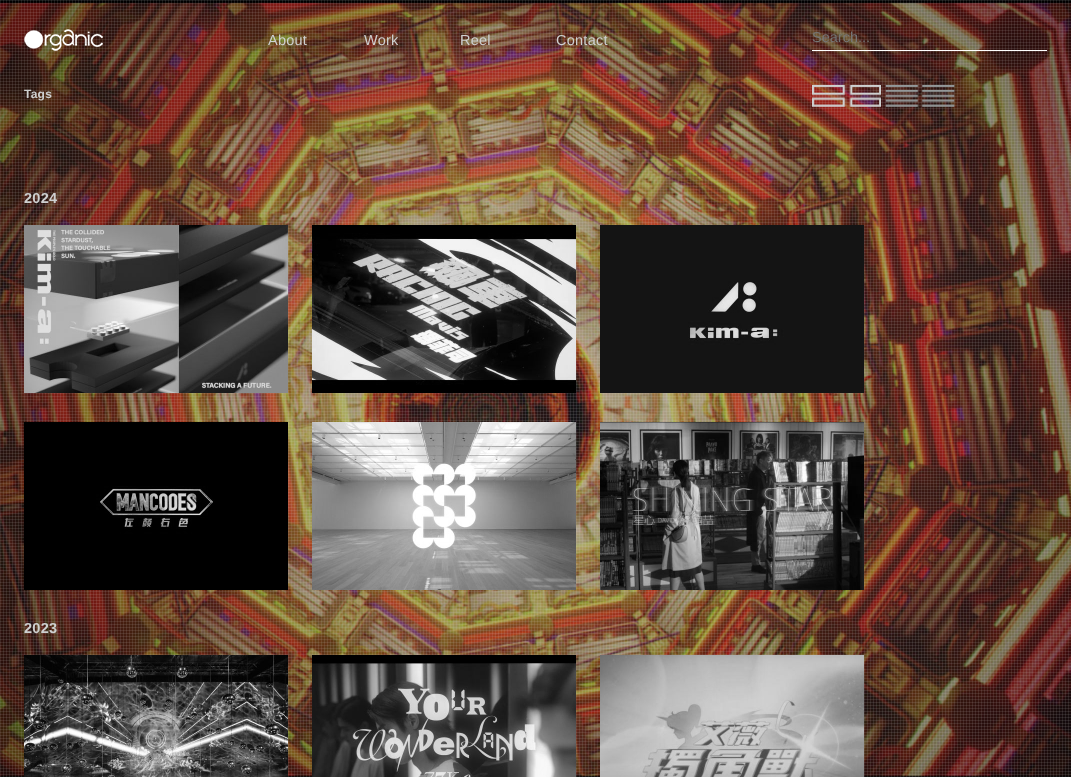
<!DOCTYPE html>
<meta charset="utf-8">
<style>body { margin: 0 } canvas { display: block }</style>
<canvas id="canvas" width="1071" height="777"></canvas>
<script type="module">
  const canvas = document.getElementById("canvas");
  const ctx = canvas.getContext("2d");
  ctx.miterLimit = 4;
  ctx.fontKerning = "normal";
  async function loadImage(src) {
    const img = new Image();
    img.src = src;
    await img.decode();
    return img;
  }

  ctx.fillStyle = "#ffffff";
  ctx.fillRect(0, 0, 1071, 777);
  ctx.drawImage(await loadImage("img1.png"), 0, 0, 1071, 180);
  ctx.drawImage(await loadImage("img2.png"), 0, 0, 1071, 180);
  ctx.letterSpacing = "0.25px";
  ctx.font = "14.5px Liberation Sans";
  ctx.fillStyle = "#ced0d0";
  ctx.fillText("About", 268, 45);
  ctx.fillText("Work", 364, 45);
  ctx.fillText("Reel", 460, 45);
  ctx.fillText("Contact", 556, 45);
  ctx.drawImage(await loadImage("img3.png"), 24, 29, 79, 22);
  ctx.fillStyle = "#ffffff";
  ctx.fillRect(812, 50, 235, 1);
  ctx.letterSpacing = "0px";
  ctx.fillStyle = "#757575";
  ctx.fillText("Search...", 812, 42);
  ctx.letterSpacing = "0.25px";
  ctx.font = "bold 12px Liberation Sans";
  ctx.fillStyle = "#ced0d0";
  ctx.fillText("Tags", 24, 98);
  ctx.drawImage(await loadImage("img4.png"), 812, 85, 69, 22);
  ctx.drawImage(await loadImage("img5.png"), 885, 85, 70, 22);
  ctx.drawImage(await loadImage("img15.png"), 0, 180, 1071, 597);
  ctx.drawImage(await loadImage("img16.png"), 0, 180, 1071, 597);
  ctx.font = "bold 14.5px Liberation Sans";
  ctx.fillText("2024", 24, 203);
  ctx.drawImage(await loadImage("img6.png"), 24, 225, 264, 168);
  ctx.drawImage(await loadImage("img7.png"), 312, 225, 264, 168);
  ctx.drawImage(await loadImage("img8.png"), 600, 225, 264, 168);
  ctx.drawImage(await loadImage("img9.png"), 24, 422, 264, 168);
  ctx.drawImage(await loadImage("img10.png"), 312, 422, 264, 168);
  ctx.drawImage(await loadImage("img11.png"), 600, 422, 264, 168);
  ctx.fillText("2023", 24, 633);
  ctx.drawImage(await loadImage("img12.png"), 24, 655, 264, 122);
  ctx.drawImage(await loadImage("img13.png"), 312, 655, 264, 122);
  ctx.drawImage(await loadImage("img14.png"), 600, 655, 264, 122);
</script>
